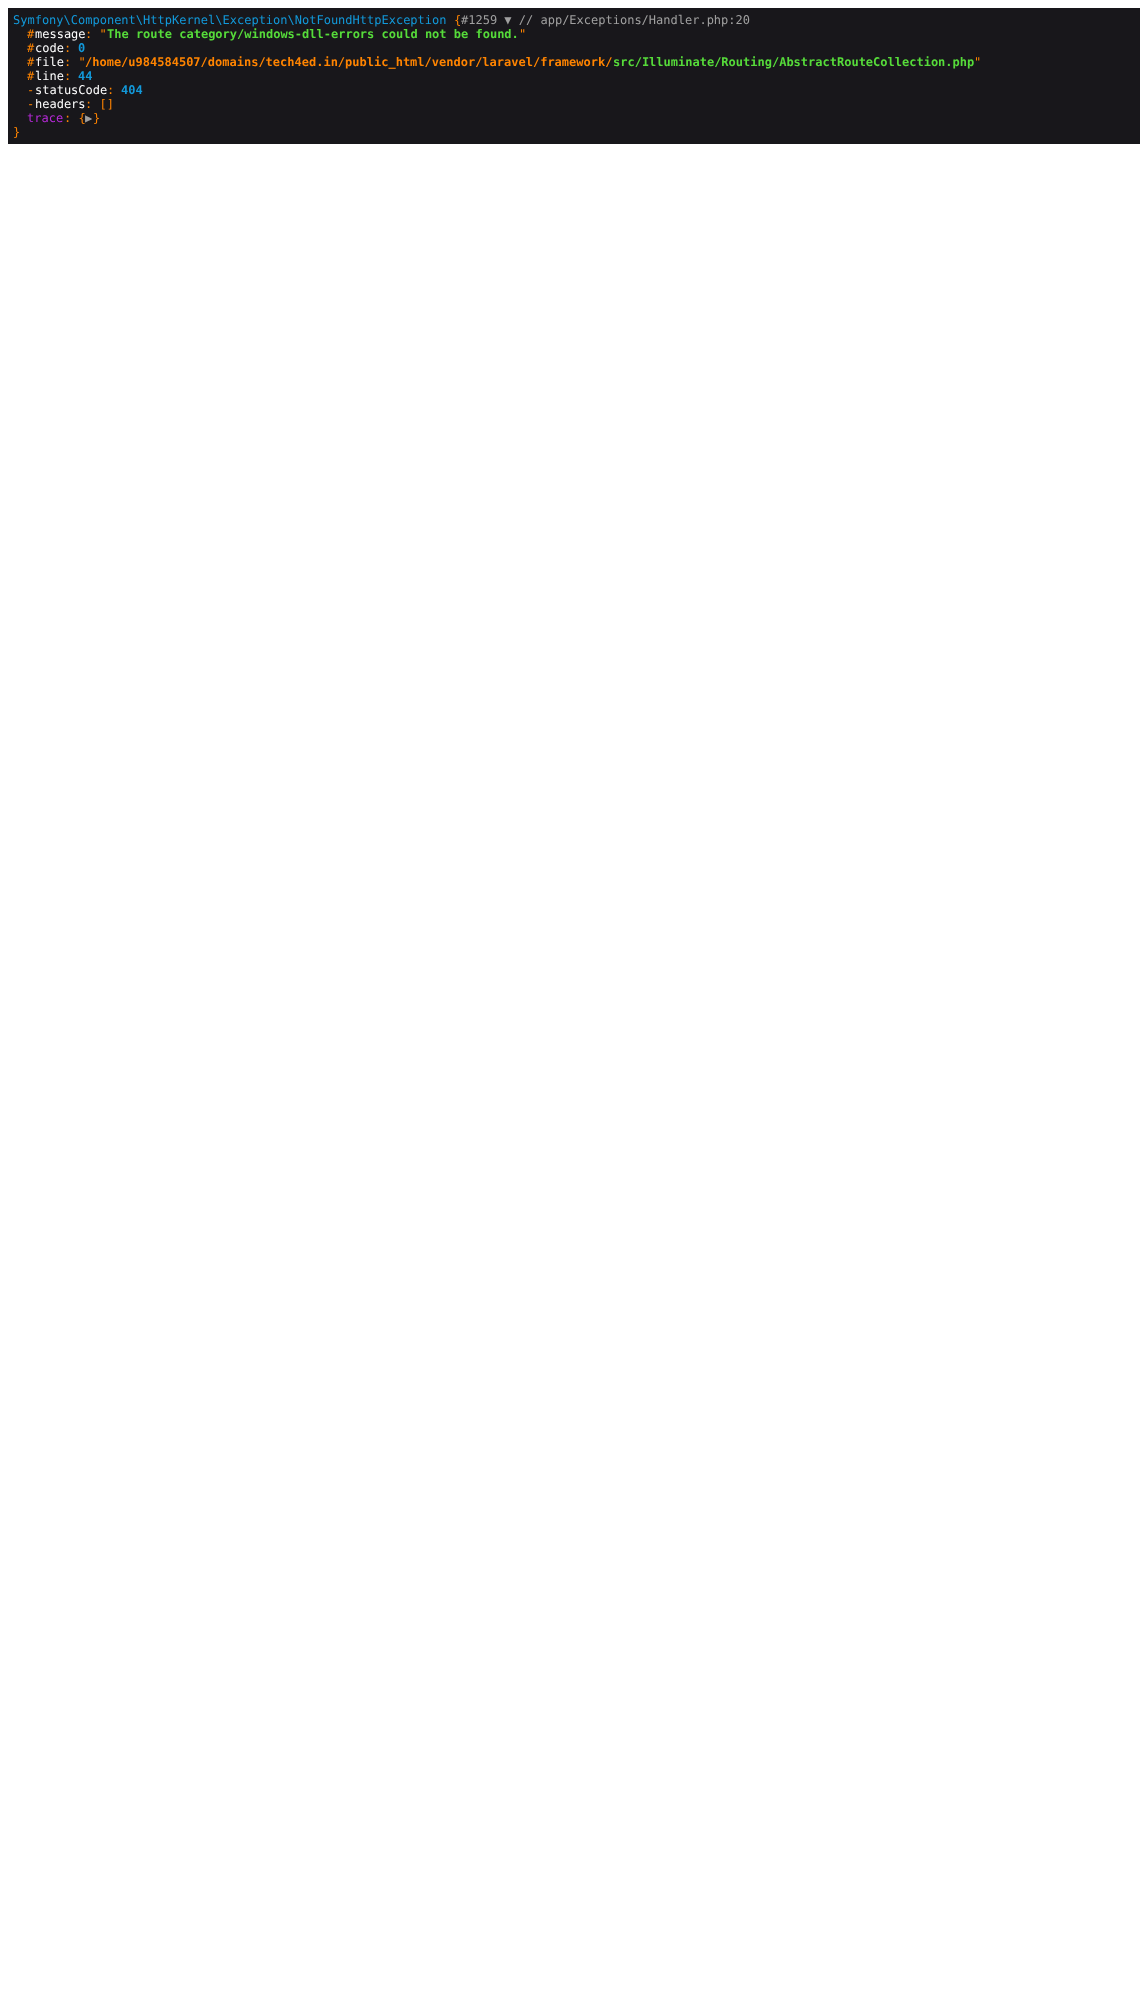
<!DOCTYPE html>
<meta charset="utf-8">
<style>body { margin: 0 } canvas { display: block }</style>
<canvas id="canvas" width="1148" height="2012"></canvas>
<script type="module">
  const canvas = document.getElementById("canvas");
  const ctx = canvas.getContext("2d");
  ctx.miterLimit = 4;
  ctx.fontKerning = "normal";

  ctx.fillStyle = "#ffffff";
  ctx.fillRect(0, 0, 1148, 2012);
  ctx.fillStyle = "#18171b";
  ctx.fillRect(8, 8, 1132, 136);
  ctx.font = "12px DejaVu Sans Mono";
  ctx.fillStyle = "#1299da";
  ctx.fillText("Symfony\\Component\\HttpKernel\\Exception\\NotFoundHttpException", 13, 24);
  ctx.fillStyle = "#ff8400";
  ctx.fillText("{", 454, 24);
  ctx.fillStyle = "#a0a0a0";
  ctx.fillText("#1259 ▼ // app/Exceptions/Handler.php:20", 461, 24);
  ctx.fillStyle = "#ff8400";
  ctx.fillText("#", 27, 38);
  ctx.fillStyle = "#ffffff";
  ctx.fillText("message", 35, 38);
  ctx.fillStyle = "#ff8400";
  ctx.fillText(": \"", 85, 38);
  ctx.font = "bold 12px DejaVu Sans Mono";
  ctx.fillStyle = "#56db3a";
  ctx.fillText("The route category/windows-dll-errors could not be found.", 107, 38);
  ctx.font = "12px DejaVu Sans Mono";
  ctx.fillStyle = "#ff8400";
  ctx.fillText("\"", 519, 38);
  ctx.fillText("#", 27, 52);
  ctx.fillStyle = "#ffffff";
  ctx.fillText("code", 35, 52);
  ctx.fillStyle = "#ff8400";
  ctx.fillText(":", 64, 52);
  ctx.font = "bold 12px DejaVu Sans Mono";
  ctx.fillStyle = "#1299da";
  ctx.fillText("0", 78, 52);
  ctx.font = "12px DejaVu Sans Mono";
  ctx.fillStyle = "#ff8400";
  ctx.fillText("#", 27, 66);
  ctx.fillStyle = "#ffffff";
  ctx.fillText("file", 35, 66);
  ctx.fillStyle = "#ff8400";
  ctx.fillText(": \"", 64, 66);
  ctx.font = "bold 12px DejaVu Sans Mono";
  ctx.fillText("/home/u984584507/domains/tech4ed.in/public_html/vendor/laravel/framework/", 85, 66);
  ctx.fillStyle = "#56db3a";
  ctx.fillText("src/Illuminate/Routing/AbstractRouteCollection.php", 613, 66);
  ctx.font = "12px DejaVu Sans Mono";
  ctx.fillStyle = "#ff8400";
  ctx.fillText("\"", 974, 66);
  ctx.fillText("#", 27, 80);
  ctx.fillStyle = "#ffffff";
  ctx.fillText("line", 35, 80);
  ctx.fillStyle = "#ff8400";
  ctx.fillText(":", 64, 80);
  ctx.font = "bold 12px DejaVu Sans Mono";
  ctx.fillStyle = "#1299da";
  ctx.fillText("44", 78, 80);
  ctx.font = "12px DejaVu Sans Mono";
  ctx.fillStyle = "#ff8400";
  ctx.fillText("-", 27, 94);
  ctx.fillStyle = "#ffffff";
  ctx.fillText("statusCode", 35, 94);
  ctx.fillStyle = "#ff8400";
  ctx.fillText(":", 107, 94);
  ctx.font = "bold 12px DejaVu Sans Mono";
  ctx.fillStyle = "#1299da";
  ctx.fillText("404", 121, 94);
  ctx.font = "12px DejaVu Sans Mono";
  ctx.fillStyle = "#ff8400";
  ctx.fillText("-", 27, 108);
  ctx.fillStyle = "#ffffff";
  ctx.fillText("headers", 35, 108);
  ctx.fillStyle = "#ff8400";
  ctx.fillText(": []", 85, 108);
  ctx.fillStyle = "#b729d9";
  ctx.fillText("trace", 27, 122);
  ctx.fillStyle = "#ff8400";
  ctx.fillText(": { }", 64, 122);
  ctx.fillStyle = "#a0a0a0";
  ctx.fillText("▶", 85, 122);
  ctx.fillStyle = "#ff8400";
  ctx.fillText("}", 13, 136);
</script>
